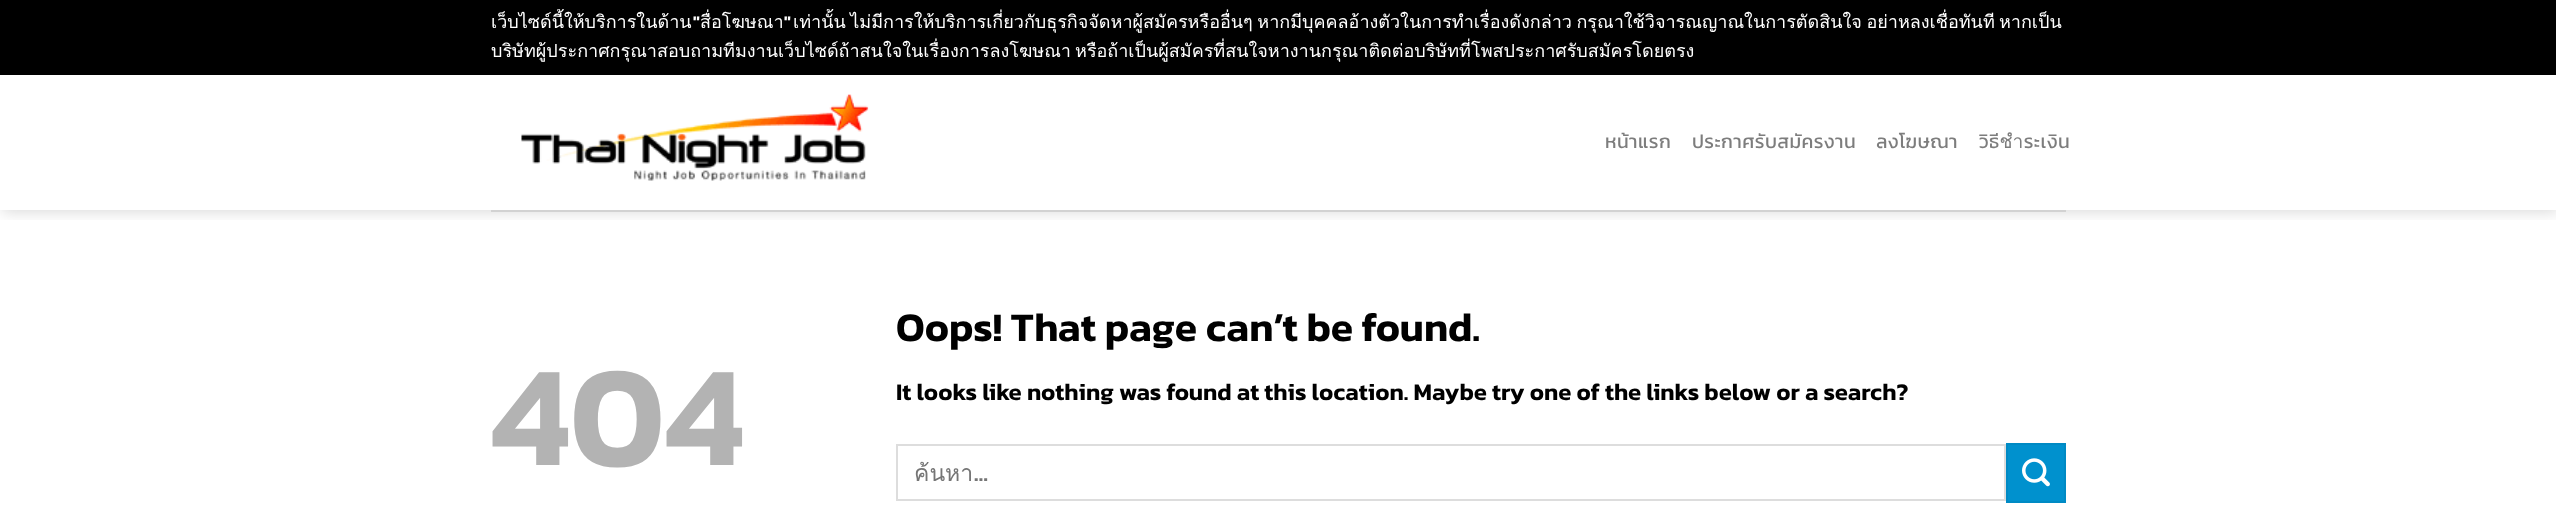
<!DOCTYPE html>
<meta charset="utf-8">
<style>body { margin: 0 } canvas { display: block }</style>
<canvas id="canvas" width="2556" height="529"></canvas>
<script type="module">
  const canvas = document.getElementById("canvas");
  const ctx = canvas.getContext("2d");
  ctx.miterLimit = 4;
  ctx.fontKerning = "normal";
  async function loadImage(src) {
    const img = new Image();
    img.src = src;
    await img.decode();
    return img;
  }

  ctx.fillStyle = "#ffffff";
  ctx.fillRect(0, 0, 2556, 529);
  ctx.save();
  ctx.beginPath();
  ctx.rect(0, 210, 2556, 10);
  ctx.clip();
  ctx.fillStyle = "rgba(0, 0, 0, 0.15)";
  ctx.filter = "blur(7.5px)";
  ctx.beginPath();
  ctx.rect(2, 2, 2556, 210);
  ctx.fill();
  ctx.filter = "none";
  ctx.restore();
  ctx.fillStyle = "#000000";
  ctx.fillRect(0, 0, 2556, 75);
  ctx.font = "18px Loma";
  ctx.fillStyle = "#ffffff";
  ctx.fillText("เว็บไซด์นี้ให้บริการในด้าน", 491, 28);
  ctx.font = "600 18px Kanit";
  ctx.fillText("\"", 693, 28);
  ctx.font = "18px Loma";
  ctx.fillText("สื่อโฆษณา", 700, 28);
  ctx.wordSpacing = "-1.5px";
  ctx.fillText("เท่านั้น ไม่มีการให้บริการเกี่ยวกับธุรกิจจัดหาผู้สมัครหรืออื่นๆ หากมีบุคคลอ้างตัวในการทำเรื่องดังกล่าว กรุณาใช้วิจารณญาณในการตัดสินใจ อย่าหลงเชื่อทันที", 793, 28);
  ctx.wordSpacing = "0px";
  ctx.fillText("หากเป็น", 1999, 28);
  ctx.font = "600 18px Kanit";
  ctx.fillText("\"", 784, 28);
  ctx.wordSpacing = "-2px";
  ctx.font = "18px Loma";
  ctx.fillText("บริษัทผู้ประกาศกรุณาสอบถามทีมงานเว็บไซด์ถ้าสนใจในเรื่องการลงโฆษณา หรือถ้าเป็นผู้สมัครที่สนใจหางานกรุณาติดต่อบริษัทที่โพสประกาศรับสมัครโดยตรง", 491, 57);
  ctx.drawImage(await loadImage("img1.png"), 521, 94, 348, 87);
  ctx.letterSpacing = "0.4px";
  ctx.wordSpacing = "0px";
  ctx.font = "19.25px Kanit";
  ctx.fillStyle = "#7d7d7d";
  ctx.fillText("หน้าแรก", 1605, 148);
  ctx.fillText("ประกาศรับสมัครงาน", 1692, 148);
  ctx.fillText("ลงโฆษณา", 1876, 148);
  ctx.fillText("วิธีชำระเงิน", 1979, 148);
  ctx.fillStyle = "#d2d2d2";
  ctx.fillRect(491, 210, 1575, 2);
  ctx.letterSpacing = "0px";
  ctx.font = "600 144px Kanit";
  ctx.fillStyle = "#b3b3b3";
  ctx.fillText("404", 491, 465);
  ctx.font = "600 40.75px Kanit";
  ctx.fillStyle = "#000000";
  ctx.fillText("Oops! That page can’t be found.", 896, 341);
  ctx.font = "600 24px Kanit";
  ctx.fillText("It looks like nothing was found at this location. Maybe try one of the links below or a search?", 896, 400);
  ctx.strokeStyle = "#dddddd";
  ctx.lineWidth = 2;
  ctx.strokeRect(897, 445, 1108, 55);
  ctx.save();
  ctx.beginPath();
  ctx.rect(915, 453, 1067, 38);
  ctx.clip();
  ctx.font = "23px Loma";
  ctx.fillStyle = "#757575";
  ctx.fillText("ค้นหา", 914, 481);
  ctx.restore();
  ctx.font = "600 23px Kanit";
  ctx.fillStyle = "#757575";
  ctx.fillText("…", 974, 481);
  ctx.fillStyle = "#0091ce";
  ctx.beginPath();
  ctx.rect(2007, 444, 58, 58);
  ctx.fill();
  ctx.strokeStyle = "#008ac4";
  ctx.stroke();
  ctx.drawImage(await loadImage("img2.png"), 2022, 458, 28, 29);
</script>
